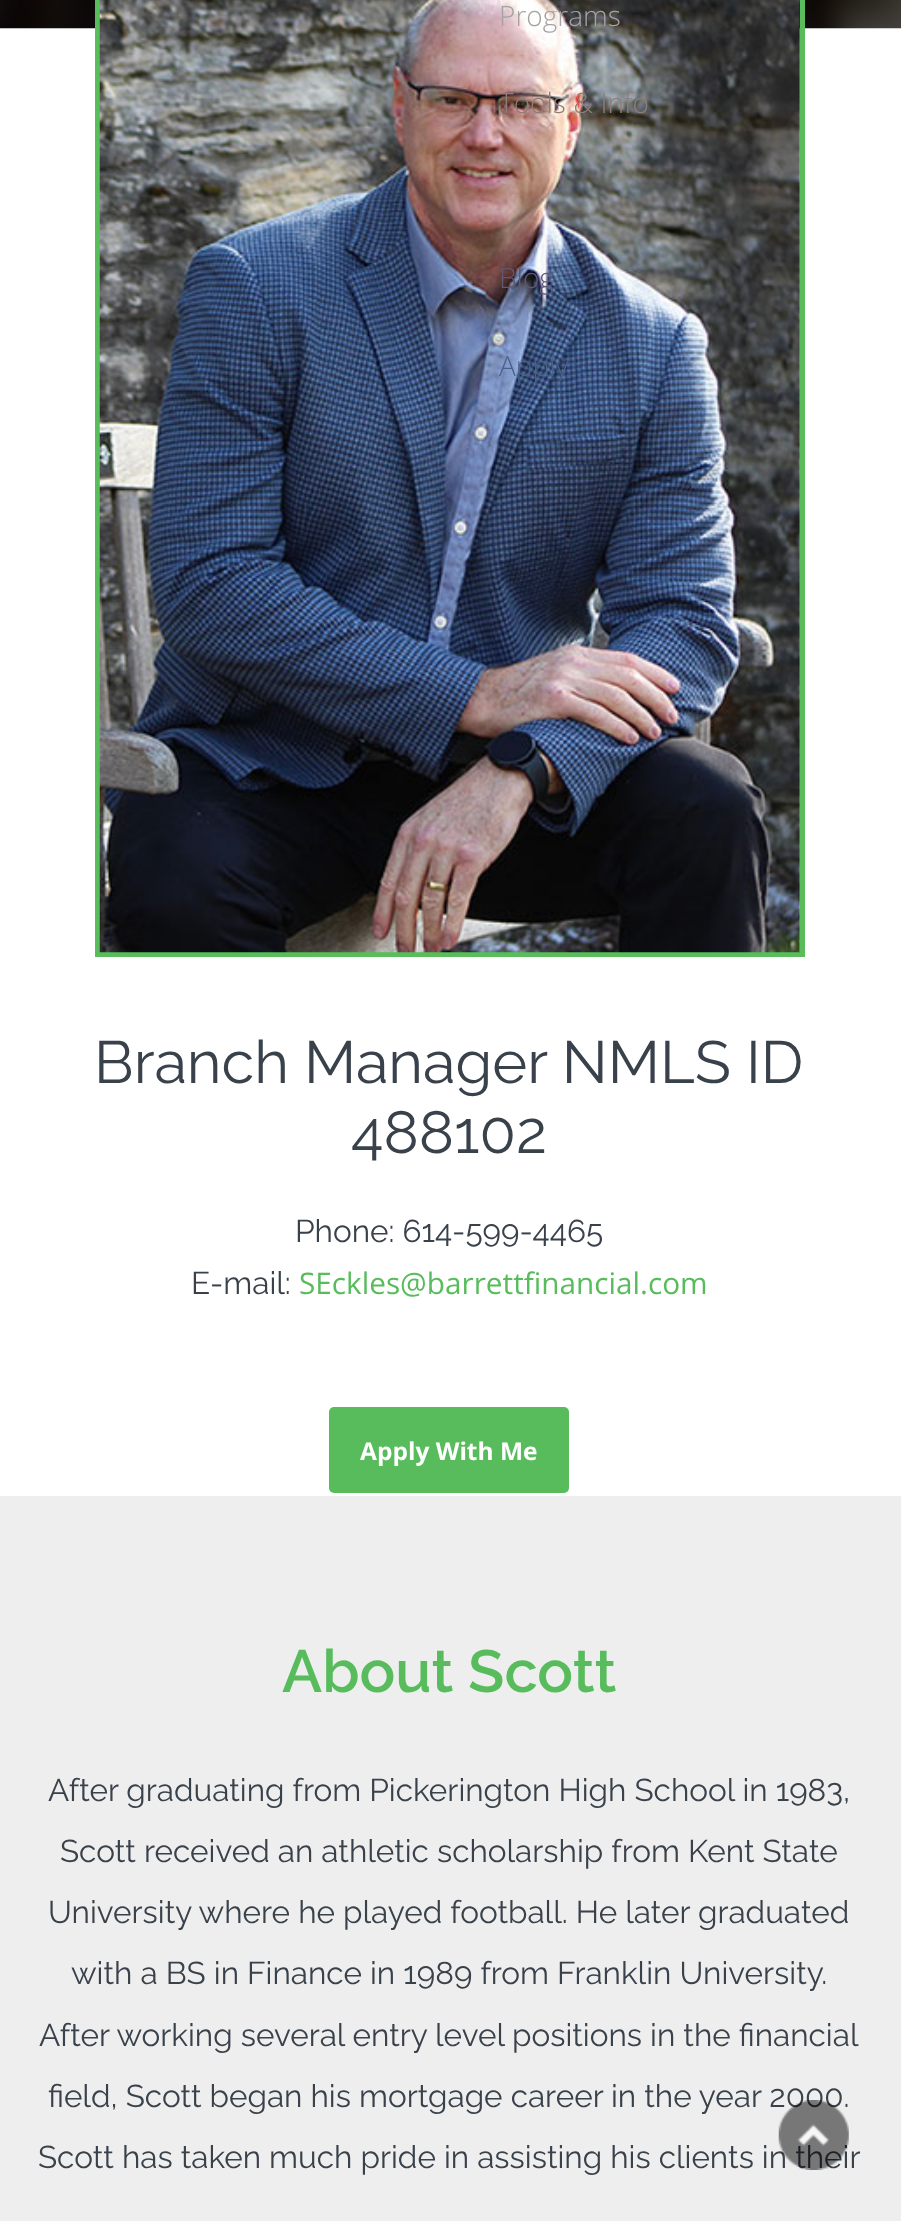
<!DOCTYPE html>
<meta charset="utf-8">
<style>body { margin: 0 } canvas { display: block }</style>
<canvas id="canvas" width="901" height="2221"></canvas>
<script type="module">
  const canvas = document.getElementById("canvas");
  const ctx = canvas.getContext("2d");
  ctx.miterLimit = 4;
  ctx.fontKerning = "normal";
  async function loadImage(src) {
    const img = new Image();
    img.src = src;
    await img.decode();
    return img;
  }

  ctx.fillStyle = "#ffffff";
  ctx.fillRect(0, 0, 901, 2221);
  ctx.drawImage(await loadImage("img1.png"), 0, 0, 901, 29);
  ctx.strokeStyle = "#59bd5b";
  ctx.lineWidth = 5;
  ctx.strokeRect(97.5, -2.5, 705, 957);
  ctx.drawImage(await loadImage("img2.png"), 99, 0, 701, 953);
  ctx.font = "300 28px Open Sans";
  ctx.fillStyle = "#a7a2a2";
  ctx.fillText("Programs", 499, 26);
  ctx.fillStyle = "#8f7d79";
  ctx.fillText("Tools & Info", 499, 113);
  ctx.fillStyle = "#5f5a6f";
  ctx.fillText("Blog", 499, 288);
  ctx.fillStyle = "#4a618a";
  ctx.fillText("Apply", 499, 376);
  ctx.font = "59.5px Raleway";
  ctx.fillStyle = "#39414b";
  ctx.fillText("Branch Manager NMLS ID", 94, 1083);
  ctx.fillText("488102", 351, 1153);
  ctx.font = "31.5px Raleway";
  ctx.fillText("Phone: 614-599-4465", 295, 1242);
  ctx.fillText("E-mail:", 191, 1294);
  ctx.font = "29.75px Open Sans";
  ctx.fillStyle = "#58bc5c";
  ctx.fillText("SEckles@barrettfinancial.com", 299, 1294);
  ctx.beginPath();
  ctx.roundRect(329, 1407, 240, 86, 5);
  ctx.fill();
  ctx.font = "bold 24.5px Open Sans";
  ctx.fillStyle = "#ffffff";
  ctx.fillText("Apply With Me", 360, 1460);
  ctx.fillStyle = "#eeeeee";
  ctx.fillRect(0, 1496, 901, 725);
  ctx.font = "600 59.5px Raleway";
  ctx.fillStyle = "#58bc5c";
  ctx.fillText("About Scott", 282, 1692);
  ctx.font = "31.5px Raleway";
  ctx.fillStyle = "#39414b";
  ctx.fillText("After graduating from Pickerington High School in 1983,", 48, 1801);
  ctx.fillText("Scott received an athletic scholarship from Kent State", 60, 1862);
  ctx.fillText("University where he played football. He later graduated", 48, 1923);
  ctx.fillText("with a BS in Finance in 1989 from Franklin University.", 71, 1984);
  ctx.fillText("After working several entry level positions in the financial", 39, 2046);
  ctx.fillText("field, Scott began his mortgage career in the year 2000.", 48, 2107);
  ctx.fillText("Scott has taken much pride in assisting his clients in their", 38, 2168);
  ctx.drawImage(await loadImage("img3.png"), 778, 2100, 71, 70);
</script>
